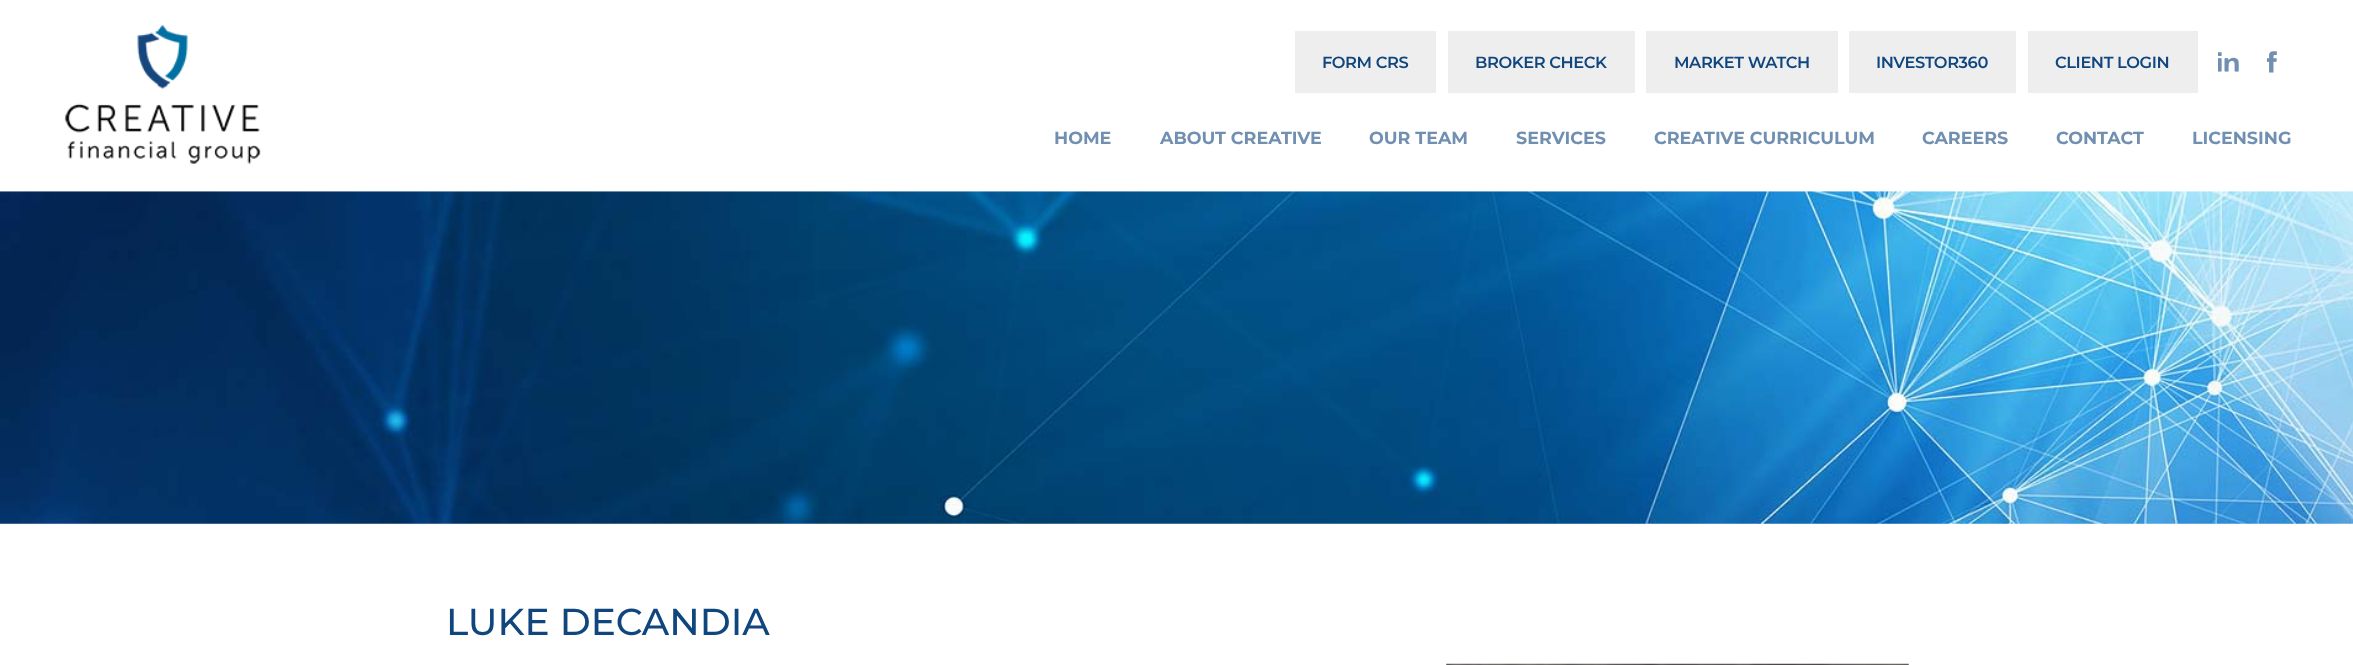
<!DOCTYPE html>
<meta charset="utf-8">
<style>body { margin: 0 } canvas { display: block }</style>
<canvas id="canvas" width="2353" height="665"></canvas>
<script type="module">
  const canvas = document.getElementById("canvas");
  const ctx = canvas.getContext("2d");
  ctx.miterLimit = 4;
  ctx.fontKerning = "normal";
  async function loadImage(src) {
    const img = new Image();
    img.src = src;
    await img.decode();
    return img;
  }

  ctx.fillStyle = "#ffffff";
  ctx.fillRect(0, 0, 2353, 665);
  ctx.drawImage(await loadImage("img1.png"), 64, 24, 197, 140);
  ctx.fillStyle = "#eeeeef";
  ctx.fillRect(1295, 31, 141, 62);
  ctx.letterSpacing = "-0.4px";
  ctx.font = "600 16.25px Montserrat";
  ctx.fillStyle = "#10467e";
  ctx.fillText("FORM CRS", 1322, 68);
  ctx.fillStyle = "#eeeeef";
  ctx.fillRect(1448, 31, 187, 62);
  ctx.fillStyle = "#10467e";
  ctx.fillText("BROKER CHECK", 1475, 68);
  ctx.fillStyle = "#eeeeef";
  ctx.fillRect(1646, 31, 192, 62);
  ctx.fillStyle = "#10467e";
  ctx.fillText("MARKET WATCH", 1674, 68);
  ctx.fillStyle = "#eeeeef";
  ctx.fillRect(1849, 31, 167, 62);
  ctx.fillStyle = "#10467e";
  ctx.fillText("INVESTOR360", 1876, 68);
  ctx.fillStyle = "#eeeeef";
  ctx.fillRect(2028, 31, 170, 62);
  ctx.fillStyle = "#10467e";
  ctx.fillText("CLIENT LOGIN", 2055, 68);
  ctx.drawImage(await loadImage("img2.png"), 2218, 52, 21, 20);
  ctx.drawImage(await loadImage("img3.png"), 2266, 51, 11, 22);
  ctx.letterSpacing = "0px";
  ctx.font = "bold 17.5px Montserrat";
  ctx.fillStyle = "#7190b1";
  ctx.fillText("HOME", 1054, 144);
  ctx.fillText("ABOUT CREATIVE", 1160, 144);
  ctx.fillText("OUR TEAM", 1369, 144);
  ctx.fillText("SERVICES", 1516, 144);
  ctx.fillText("CREATIVE CURRICULUM", 1654, 144);
  ctx.fillText("CAREERS", 1922, 144);
  ctx.fillText("CONTACT", 2056, 144);
  ctx.fillText("LICENSING", 2192, 144);
  ctx.drawImage(await loadImage("img4.png"), 0, 191, 2353, 333);
  ctx.font = "500 37.5px Montserrat";
  ctx.fillStyle = "#10467e";
  ctx.fillText("LUKE DECANDIA", 446, 635);
  ctx.drawImage(await loadImage("img5.png"), 1446, 663, 463, 2);
</script>
